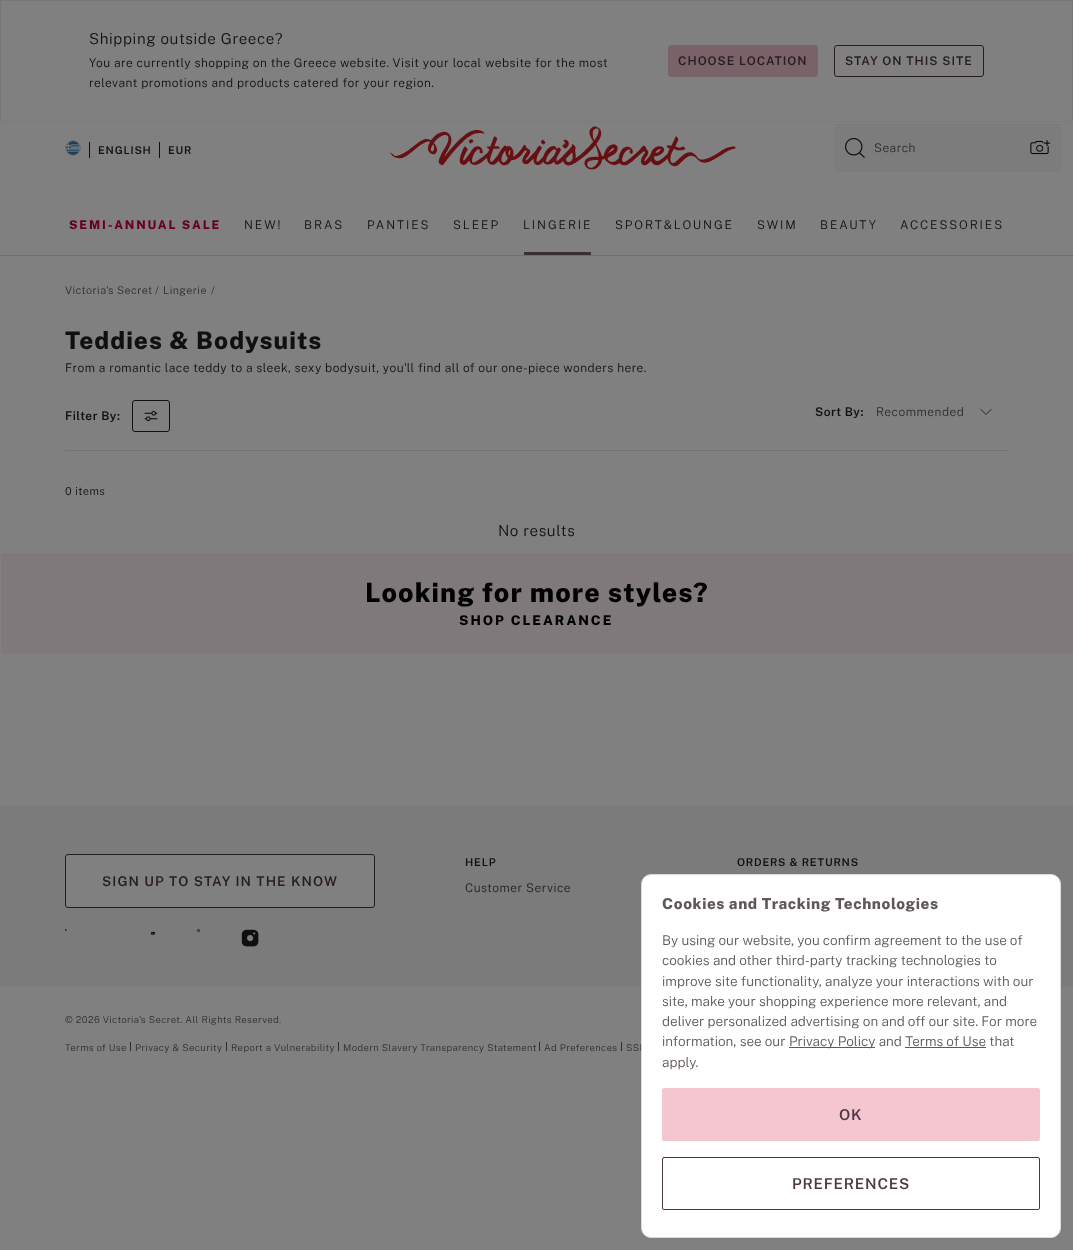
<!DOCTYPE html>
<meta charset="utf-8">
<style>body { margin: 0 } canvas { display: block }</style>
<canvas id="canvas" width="1073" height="1250"></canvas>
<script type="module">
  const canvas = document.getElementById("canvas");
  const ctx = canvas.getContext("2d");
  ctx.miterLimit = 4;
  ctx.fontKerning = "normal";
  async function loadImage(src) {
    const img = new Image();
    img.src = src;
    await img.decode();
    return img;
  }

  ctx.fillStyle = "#808080";
  ctx.fillRect(0, 0, 1073, 1250);
  ctx.fillStyle = "#7d7174";
  ctx.fillRect(0, 0, 1073, 2);
  ctx.fillStyle = "#808080";
  ctx.beginPath();
  ctx.roundRect(0, 0, 1073, 122, 2);
  ctx.fill();
  ctx.beginPath();
  ctx.moveTo(1072, 121);
  ctx.lineTo(1071, 121.5);
  ctx.lineTo(2, 121.5);
  ctx.lineTo(1, 121);
  ctx.strokeStyle = "#7b7b7b";
  ctx.stroke();
  ctx.beginPath();
  ctx.moveTo(1, 121);
  ctx.lineTo(0.5, 120);
  ctx.lineTo(0.5, 2);
  ctx.lineTo(1, 1);
  ctx.lineTo(2, 0.5);
  ctx.lineTo(1071, 0.5);
  ctx.lineTo(1072, 1);
  ctx.lineTo(1072.5, 2);
  ctx.lineTo(1072.5, 120);
  ctx.lineTo(1072, 121);
  ctx.strokeStyle = "#787675";
  ctx.stroke();
  ctx.letterSpacing = "0.6px";
  ctx.font = "300 15.2px Public Sans";
  ctx.fillStyle = "#110f0f";
  ctx.fillText("Shipping outside Greece?", 89, 44);
  ctx.letterSpacing = "0.48px";
  ctx.font = "300 12px Public Sans";
  ctx.fillText("You are currently shopping on the Greece website. Visit your local website for the most", 89, 67);
  ctx.fillText("relevant promotions and products catered for your region.", 89, 87);
  ctx.fillStyle = "#7a6368";
  ctx.beginPath();
  ctx.roundRect(668.5, 45.5, 149, 31, 2.5);
  ctx.fill();
  ctx.strokeStyle = "#7a6368";
  ctx.stroke();
  ctx.letterSpacing = "1px";
  ctx.font = "600 12px Public Sans";
  ctx.fillStyle = "#271c22";
  ctx.fillText("CHOOSE LOCATION", 678, 65);
  ctx.beginPath();
  ctx.roundRect(834.5, 45.5, 149, 31, 2.5);
  ctx.strokeStyle = "#271c22";
  ctx.stroke();
  ctx.fillText("STAY ON THIS SITE", 845, 65);
  ctx.beginPath();
  ctx.arc(73, 148, 7.5, 0, Math.PI * 2);
  ctx.strokeStyle = "#706d6b";
  ctx.stroke();
  ctx.drawImage(await loadImage("img1.png"), 66, 141, 14, 14);
  ctx.fillStyle = "#110f0f";
  ctx.fillRect(89, 142, 1, 16);
  ctx.letterSpacing = "0.8px";
  ctx.font = "600 10.75px Public Sans";
  ctx.fillText("ENGLISH", 98, 154);
  ctx.fillRect(159, 142, 1, 16);
  ctx.fillText("EUR", 168, 154);
  ctx.drawImage(await loadImage("img2.png"), 390, 126, 346, 44);
  ctx.fillStyle = "#7d7c7d";
  ctx.beginPath();
  ctx.roundRect(834, 124, 228, 48, 2);
  ctx.fill();
  ctx.drawImage(await loadImage("img3.png"), 845, 138, 20, 20);
  ctx.letterSpacing = "0.48px";
  ctx.font = "300 12px Public Sans";
  ctx.fillStyle = "#302c2c";
  ctx.fillText("Search", 874, 152);
  ctx.drawImage(await loadImage("img4.png"), 1030, 140, 21, 15);
  ctx.letterSpacing = "1.9px";
  ctx.font = "800 12px Public Sans";
  ctx.fillStyle = "#68001d";
  ctx.fillText("SEMI-ANNUAL SALE", 69, 229);
  ctx.font = "300 12px Public Sans";
  ctx.fillStyle = "#110f0f";
  ctx.fillText("NEW!", 244, 229);
  ctx.fillText("BRAS", 304, 229);
  ctx.fillText("PANTIES", 367, 229);
  ctx.fillText("SLEEP", 453, 229);
  ctx.fillText("LINGERIE", 523, 229);
  ctx.fillStyle = "#393035";
  ctx.fillRect(524, 252, 67, 3);
  ctx.fillStyle = "#110f0f";
  ctx.fillText("SPORT&LOUNGE", 615, 229);
  ctx.fillText("SWIM", 757, 229);
  ctx.fillText("BEAUTY", 820, 229);
  ctx.fillText("ACCESSORIES", 900, 229);
  ctx.fillStyle = "#706d6b";
  ctx.fillRect(0, 255, 1073, 1);
  ctx.letterSpacing = "0.44px";
  ctx.font = "300 10.75px Public Sans";
  ctx.fillStyle = "#302c2c";
  ctx.fillText("Victoria's Secret", 65, 294);
  ctx.fillText("/", 155, 294);
  ctx.fillText("Lingerie", 163, 294);
  ctx.fillText("/", 211, 294);
  ctx.letterSpacing = "1px";
  ctx.font = "800 24.25px Public Sans";
  ctx.fillStyle = "#110f0f";
  ctx.fillText("Teddies & Bodysuits", 65, 349);
  ctx.letterSpacing = "0.44px";
  ctx.font = "300 12px Public Sans";
  ctx.fillText("From a romantic lace teddy to a sleek, sexy bodysuit, you'll find all of our one-piece wonders here.", 65, 372);
  ctx.fillStyle = "#747270";
  ctx.fillRect(65, 450, 944, 1);
  ctx.letterSpacing = "0.48px";
  ctx.font = "600 12px Public Sans";
  ctx.fillStyle = "#110f0f";
  ctx.fillText("Filter By:", 65, 420);
  ctx.beginPath();
  ctx.roundRect(132.5, 400.5, 37, 31, 2.5);
  ctx.strokeStyle = "#110f0f";
  ctx.stroke();
  ctx.drawImage(await loadImage("img5.png"), 144, 411, 14, 11);
  ctx.fillText("Sort By:", 815, 416);
  ctx.font = "300 12px Public Sans";
  ctx.fillStyle = "#302c2c";
  ctx.fillText("Recommended", 876, 416);
  ctx.beginPath();
  ctx.moveTo(991, 409.5);
  ctx.lineTo(986, 414.5);
  ctx.lineTo(981, 409.5);
  ctx.lineWidth = 0.8;
  ctx.lineCap = "round";
  ctx.stroke();
  ctx.letterSpacing = "0.44px";
  ctx.font = "300 11px Public Sans";
  ctx.fillStyle = "#110f0f";
  ctx.fillText("0 items", 65, 495);
  ctx.letterSpacing = "0.6px";
  ctx.font = "300 15.2px Public Sans";
  ctx.fillText("No results", 498, 536);
  ctx.fillStyle = "#7f797b";
  ctx.fillRect(1, 553, 1072, 101);
  ctx.letterSpacing = "1.1px";
  ctx.font = "800 26.75px Public Sans";
  ctx.fillStyle = "#000000";
  ctx.fillText("Looking for more styles?", 365, 602);
  ctx.letterSpacing = "2px";
  ctx.font = "800 13.4px Public Sans";
  ctx.fillText("SHOP CLEARANCE", 459, 625);
  ctx.fillStyle = "#7b7b7b";
  ctx.fillRect(0, 806, 1073, 180);
  ctx.fillStyle = "#808080";
  ctx.beginPath();
  ctx.roundRect(65.5, 854.5, 309, 53, 2.5);
  ctx.fill();
  ctx.strokeStyle = "#271c22";
  ctx.lineWidth = 1;
  ctx.stroke();
  ctx.letterSpacing = "1.1px";
  ctx.font = "600 13.5px Public Sans";
  ctx.fillStyle = "#271c22";
  ctx.fillText("SIGN UP TO STAY IN THE KNOW", 102, 886);
  ctx.drawImage(await loadImage("img6.png"), 65, 929, 2, 2);
  ctx.drawImage(await loadImage("img7.png"), 151, 931, 4, 4);
  ctx.fillStyle = "#484747";
  ctx.fillRect(197, 929, 3, 3);
  ctx.drawImage(await loadImage("img8.png"), 241, 929, 18, 18);
  ctx.letterSpacing = "0.8px";
  ctx.font = "600 10.75px Public Sans";
  ctx.fillStyle = "#110f0f";
  ctx.fillText("HELP", 465, 866);
  ctx.letterSpacing = "0.48px";
  ctx.font = "300 12px Public Sans";
  ctx.fillStyle = "#271c22";
  ctx.fillText("Customer Service", 465, 892);
  ctx.letterSpacing = "0.8px";
  ctx.font = "600 10.75px Public Sans";
  ctx.fillStyle = "#110f0f";
  ctx.fillText("ORDERS & RETURNS", 737, 866);
  ctx.letterSpacing = "0.4px";
  ctx.font = "300 9.5px Public Sans";
  ctx.fillStyle = "#302c2c";
  ctx.fillText("© 2026 Victoria's Secret. All Rights Reserved.", 65, 1023);
  ctx.fillText("Terms of Use", 65, 1051);
  ctx.fillRect(130, 1042, 1, 9);
  ctx.fillText("Privacy & Security", 135, 1051);
  ctx.fillRect(226, 1042, 1, 9);
  ctx.fillText("Report a Vulnerability", 231, 1051);
  ctx.fillRect(338, 1042, 1, 9);
  ctx.fillText("Modern Slavery Transparency Statement", 343, 1051);
  ctx.fillRect(539, 1042, 1, 9);
  ctx.fillText("Ad Preferences", 544, 1051);
  ctx.fillRect(621, 1042, 1, 9);
  ctx.fillText("SSL", 626, 1051);
  ctx.fillStyle = "#ffffff";
  ctx.beginPath();
  ctx.roundRect(641.5, 874.5, 419, 363, 9.5);
  ctx.fill();
  ctx.strokeStyle = "#e0dad5";
  ctx.stroke();
  ctx.letterSpacing = "0.6px";
  ctx.font = "800 15.2px Public Sans";
  ctx.fillStyle = "#605858";
  ctx.fillText("Cookies and Tracking Technologies", 662, 909);
  ctx.letterSpacing = "0px";
  ctx.font = "300 13.5px Public Sans";
  ctx.fillText("By using our website, you confirm agreement to the use of", 662, 945);
  ctx.fillText("cookies and other third-party tracking technologies to", 662, 965);
  ctx.fillText("improve site functionality, analyze your interactions with our", 662, 986);
  ctx.fillText("site, make your shopping experience more relevant, and", 662, 1006);
  ctx.fillText("deliver personalized advertising on and off our site. For more", 662, 1026);
  ctx.fillText("information, see our", 662, 1046);
  ctx.fillRect(789, 1047, 86, 1);
  ctx.fillText("Privacy Policy and Terms of Use that", 789, 1046);
  ctx.fillRect(905, 1047, 81, 1);
  ctx.fillText("apply.", 662, 1067);
  ctx.fillStyle = "#f4c6cf";
  ctx.beginPath();
  ctx.roundRect(662.5, 1088.5, 377, 52, 1.5);
  ctx.fill();
  ctx.strokeStyle = "#f4c6cf";
  ctx.stroke();
  ctx.letterSpacing = "0.75px";
  ctx.font = "600 15px Public Sans";
  ctx.fillStyle = "#4e3844";
  ctx.fillText("OK", 839, 1120);
  ctx.beginPath();
  ctx.roundRect(662.5, 1157.5, 377, 52, 1.5);
  ctx.strokeStyle = "#4e3844";
  ctx.stroke();
  ctx.fillText("PREFERENCES", 792, 1189);
</script>
